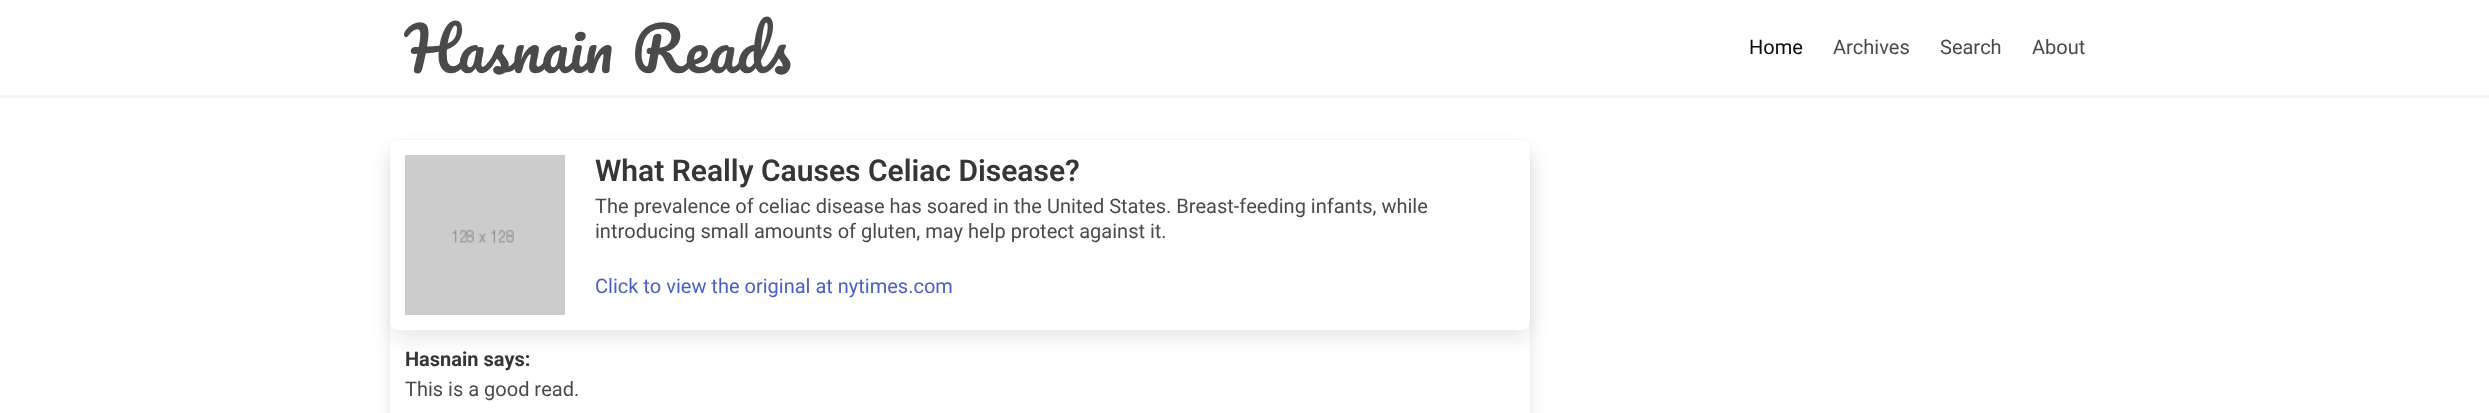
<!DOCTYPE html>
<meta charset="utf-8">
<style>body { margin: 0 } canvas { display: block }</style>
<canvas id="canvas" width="2489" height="413"></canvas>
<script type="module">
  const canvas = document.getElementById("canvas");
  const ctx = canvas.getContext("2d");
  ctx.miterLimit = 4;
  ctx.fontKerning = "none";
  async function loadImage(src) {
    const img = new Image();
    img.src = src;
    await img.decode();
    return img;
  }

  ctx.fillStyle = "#ffffff";
  ctx.fillRect(0, 0, 2489, 413);
  ctx.fillStyle = "#f5f5f5";
  ctx.fillRect(0, 95, 2489, 3);
  ctx.wordSpacing = "3px";
  ctx.font = "60px Pacifico";
  ctx.fillStyle = "#4a4a4a";
  ctx.fillText("Hasnain Reads", 405, 73);
  ctx.wordSpacing = "0px";
  ctx.font = "20px Roboto";
  ctx.fillStyle = "#0a0a0a";
  ctx.fillText("Home", 1749, 54);
  ctx.fillStyle = "#4a4a4a";
  ctx.fillText("Archives", 1833, 54);
  ctx.fillText("Search", 1940, 54);
  ctx.fillText("About", 2032, 54);
  ctx.beginPath();
  ctx.roundRect(389.5, 139.5, 1141, 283, 8.5);
  ctx.strokeStyle = "#fafafa";
  ctx.stroke();
  ctx.fillStyle = "rgba(10, 10, 10, 0.1)";
  ctx.filter = "blur(10px)";
  ctx.beginPath();
  ctx.roundRect(393, 153, 1135, 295, 5);
  ctx.fill();
  ctx.filter = "none";
  ctx.fillStyle = "#ffffff";
  ctx.beginPath();
  ctx.roundRect(390, 140, 1140, 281, 8);
  ctx.fill();
  ctx.fillStyle = "rgba(10, 10, 10, 0.1)";
  ctx.filter = "blur(10px)";
  ctx.beginPath();
  ctx.roundRect(393, 153, 1135, 185, 5);
  ctx.fill();
  ctx.filter = "none";
  ctx.fillStyle = "#ffffff";
  ctx.beginPath();
  ctx.roundRect(390, 140, 1140, 190, 8);
  ctx.fill();
  ctx.drawImage(await loadImage("img1.png"), 405, 155, 160, 160);
  ctx.font = "600 30px Roboto";
  ctx.fillStyle = "#363636";
  ctx.fillText("What Really Causes Celiac Disease?", 595, 181);
  ctx.font = "20px Roboto";
  ctx.fillStyle = "#4a4a4a";
  ctx.fillText("The prevalence of celiac disease has soared in the United States. Breast-feeding infants, while", 595, 213);
  ctx.fillText("introducing small amounts of gluten, may help protect against it.", 595, 238);
  ctx.fillStyle = "#485fc7";
  ctx.fillText("Click to view the original at nytimes.com", 595, 293);
  ctx.font = "bold 20px Roboto";
  ctx.fillStyle = "#363636";
  ctx.fillText("Hasnain says:", 405, 366);
  ctx.font = "20px Roboto";
  ctx.fillStyle = "#4a4a4a";
  ctx.fillText("This is a good read.", 405, 396);
</script>
